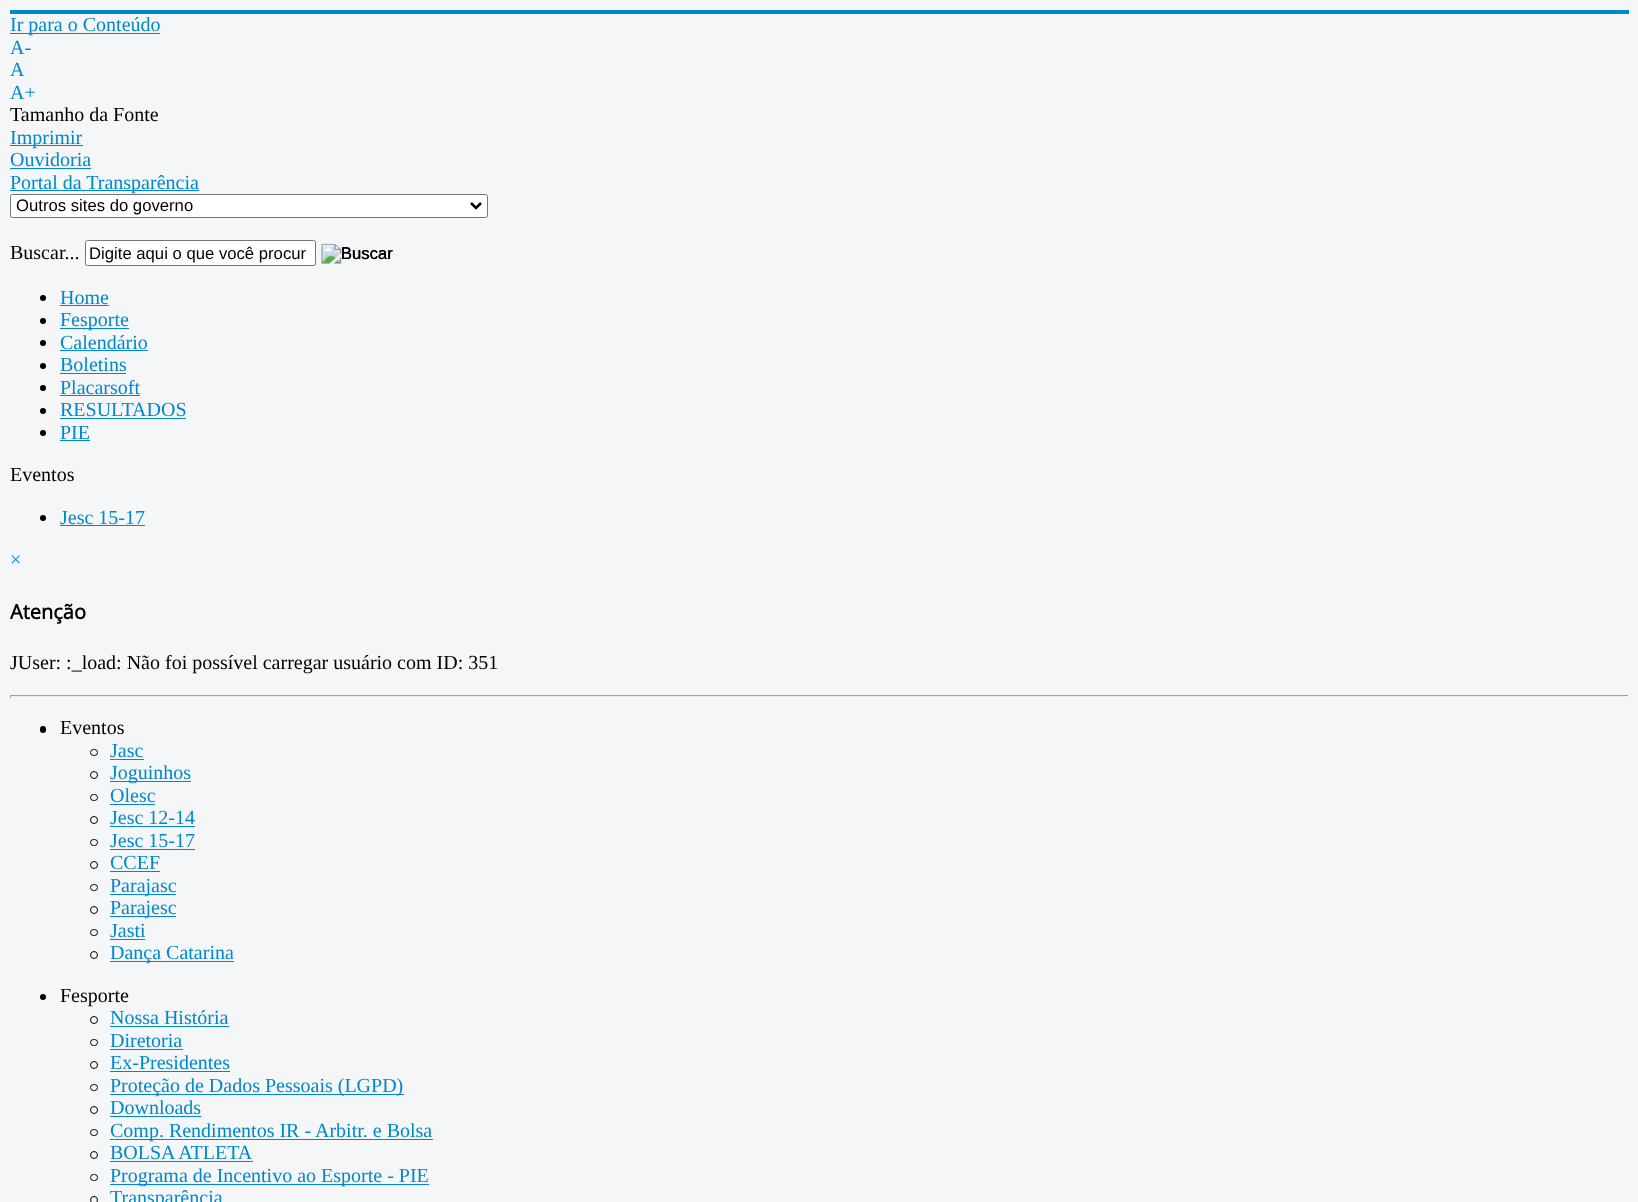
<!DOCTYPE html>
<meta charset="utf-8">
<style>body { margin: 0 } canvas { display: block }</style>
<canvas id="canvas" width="1638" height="1202"></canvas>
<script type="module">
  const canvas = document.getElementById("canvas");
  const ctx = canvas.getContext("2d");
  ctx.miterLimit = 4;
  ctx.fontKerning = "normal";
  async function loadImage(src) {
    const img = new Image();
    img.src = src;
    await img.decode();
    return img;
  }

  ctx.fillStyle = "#f4f6f7";
  ctx.fillRect(0, 0, 1638, 1202);
  ctx.fillStyle = "#0088cc";
  ctx.fillRect(10, 10, 1619, 4);
  ctx.fillRect(10, 33, 150, 1);
  ctx.font = "20px Liberation Serif";
  ctx.fillText("Ir para o Conteúdo", 10, 31);
  ctx.fillText("A-", 10, 54);
  ctx.fillText("A", 10, 76);
  ctx.fillText("A+", 10, 99);
  ctx.fillStyle = "#000000";
  ctx.fillText("Tamanho da Fonte", 10, 121);
  ctx.fillStyle = "#0088cc";
  ctx.fillRect(10, 145, 73, 1);
  ctx.fillText("Imprimir", 10, 144);
  ctx.fillText("Ouvidoria", 10, 166);
  ctx.fillRect(10, 168, 81, 1);
  ctx.fillRect(10, 190, 189, 1);
  ctx.fillText("Portal da Transparência", 10, 189);
  ctx.fillStyle = "#ffffff";
  ctx.beginPath();
  ctx.roundRect(10.5, 194.5, 477, 23, 2);
  ctx.fill();
  ctx.strokeStyle = "#767676";
  ctx.stroke();
  ctx.beginPath();
  ctx.moveTo(471, 203);
  ctx.lineTo(476, 208);
  ctx.lineTo(481, 203);
  ctx.strokeStyle = "#000000";
  ctx.lineWidth = 2.5;
  ctx.stroke();
  ctx.font = "16.7px Liberation Sans";
  ctx.fillStyle = "#000000";
  ctx.fillText("Outros sites do governo", 16, 211);
  ctx.font = "20px Liberation Serif";
  ctx.fillText("Buscar...", 10, 259);
  ctx.fillStyle = "#ffffff";
  ctx.beginPath();
  ctx.roundRect(85.5, 240.5, 230, 25, 2);
  ctx.fill();
  ctx.strokeStyle = "#767676";
  ctx.lineWidth = 1;
  ctx.stroke();
  ctx.font = "16.7px Liberation Sans";
  ctx.fillStyle = "#000000";
  ctx.fillText("Digite aqui o que você procur", 89, 259);
  ctx.drawImage(await loadImage("img1.png"), 321, 243, 72, 21);
  ctx.fillText("Buscar", 341, 259);
  ctx.beginPath();
  ctx.arc(43, 298, 3, 0, Math.PI * 2);
  ctx.fill();
  ctx.font = "20px Liberation Serif";
  ctx.fillStyle = "#0088cc";
  ctx.fillText("Home", 60, 304);
  ctx.fillRect(60, 305, 49, 1);
  ctx.fillStyle = "#000000";
  ctx.beginPath();
  ctx.arc(43, 321, 3, 0, Math.PI * 2);
  ctx.fill();
  ctx.fillStyle = "#0088cc";
  ctx.fillRect(60, 328, 69, 1);
  ctx.fillText("Fesporte", 60, 326);
  ctx.fillStyle = "#000000";
  ctx.beginPath();
  ctx.arc(43, 343, 3, 0, Math.PI * 2);
  ctx.fill();
  ctx.fillStyle = "#0088cc";
  ctx.fillText("Calendário", 60, 349);
  ctx.fillRect(60, 350, 88, 1);
  ctx.fillStyle = "#000000";
  ctx.beginPath();
  ctx.arc(43, 366, 3, 0, Math.PI * 2);
  ctx.fill();
  ctx.fillStyle = "#0088cc";
  ctx.fillText("Boletins", 60, 371);
  ctx.fillRect(60, 373, 66, 1);
  ctx.fillStyle = "#000000";
  ctx.beginPath();
  ctx.arc(43, 388, 3, 0, Math.PI * 2);
  ctx.fill();
  ctx.fillStyle = "#0088cc";
  ctx.fillText("Placarsoft", 60, 394);
  ctx.fillRect(60, 395, 80, 1);
  ctx.fillStyle = "#000000";
  ctx.beginPath();
  ctx.arc(43, 411, 3, 0, Math.PI * 2);
  ctx.fill();
  ctx.fillStyle = "#0088cc";
  ctx.fillText("RESULTADOS", 60, 416);
  ctx.fillRect(60, 418, 126, 1);
  ctx.fillStyle = "#000000";
  ctx.beginPath();
  ctx.arc(43, 433, 3, 0, Math.PI * 2);
  ctx.fill();
  ctx.fillStyle = "#0088cc";
  ctx.fillText("PIE", 60, 439);
  ctx.fillRect(60, 440, 30, 1);
  ctx.fillStyle = "#000000";
  ctx.fillText("Eventos", 10, 481);
  ctx.beginPath();
  ctx.arc(43, 518, 3, 0, Math.PI * 2);
  ctx.fill();
  ctx.fillStyle = "#0088cc";
  ctx.fillText("Jesc 15-17", 60, 524);
  ctx.fillRect(60, 525, 85, 1);
  ctx.fillText("×", 10, 566);
  ctx.font = "bold 20px Open Sans";
  ctx.fillStyle = "#000000";
  ctx.fillText("Atenção", 10, 619);
  ctx.font = "20px Liberation Serif";
  ctx.fillText("JUser: :_load: Não foi possível carregar usuário com ID: 351", 10, 669);
  ctx.fillStyle = "#9f9f9f";
  ctx.fillRect(10, 695, 1619, 1);
  ctx.fillStyle = "#eeeeee";
  ctx.fillRect(1628, 695, 1, 3);
  ctx.fillRect(10, 696, 1619, 1);
  ctx.fillStyle = "#9f9f9f";
  ctx.fillRect(10, 695, 1, 3);
  ctx.fillStyle = "#000000";
  ctx.beginPath();
  ctx.roundRect(40, 726, 6, 7, 3);
  ctx.fill();
  ctx.fillText("Eventos", 60, 734);
  ctx.beginPath();
  ctx.roundRect(90.5, 749.5, 7, 6, 3);
  ctx.strokeStyle = "#000000";
  ctx.stroke();
  ctx.fillStyle = "#0088cc";
  ctx.fillText("Jasc", 110, 757);
  ctx.fillRect(110, 759, 34, 1);
  ctx.beginPath();
  ctx.arc(94, 775, 3.5, 0, Math.PI * 2);
  ctx.stroke();
  ctx.fillRect(110, 781, 81, 1);
  ctx.fillText("Joguinhos", 110, 779);
  ctx.beginPath();
  ctx.roundRect(90.5, 794.5, 7, 6, 3);
  ctx.stroke();
  ctx.fillText("Olesc", 110, 802);
  ctx.fillRect(110, 804, 45, 1);
  ctx.beginPath();
  ctx.arc(94, 820, 3.5, 0, Math.PI * 2);
  ctx.stroke();
  ctx.fillText("Jesc 12-14", 110, 824);
  ctx.fillRect(110, 826, 85, 1);
  ctx.beginPath();
  ctx.roundRect(90.5, 839.5, 7, 6, 3);
  ctx.stroke();
  ctx.fillText("Jesc 15-17", 110, 847);
  ctx.fillRect(110, 849, 85, 1);
  ctx.beginPath();
  ctx.arc(94, 865, 3.5, 0, Math.PI * 2);
  ctx.stroke();
  ctx.fillText("CCEF", 110, 869);
  ctx.fillRect(110, 871, 50, 1);
  ctx.beginPath();
  ctx.roundRect(90.5, 884.5, 7, 6, 3);
  ctx.stroke();
  ctx.fillRect(110, 894, 66, 1);
  ctx.fillText("Parajasc", 110, 892);
  ctx.beginPath();
  ctx.arc(94, 910, 3.5, 0, Math.PI * 2);
  ctx.stroke();
  ctx.fillRect(110, 916, 66, 1);
  ctx.fillText("Parajesc", 110, 914);
  ctx.beginPath();
  ctx.roundRect(90.5, 929.5, 7, 6, 3);
  ctx.stroke();
  ctx.fillText("Jasti", 110, 937);
  ctx.fillRect(110, 939, 35, 1);
  ctx.beginPath();
  ctx.arc(94, 955, 3.5, 0, Math.PI * 2);
  ctx.stroke();
  ctx.fillRect(110, 961, 124, 1);
  ctx.fillText("Dança Catarina", 110, 959);
  ctx.fillStyle = "#000000";
  ctx.beginPath();
  ctx.arc(43, 997, 3, 0, Math.PI * 2);
  ctx.fill();
  ctx.fillText("Fesporte", 60, 1002);
  ctx.beginPath();
  ctx.arc(94, 1020, 3.5, 0, Math.PI * 2);
  ctx.stroke();
  ctx.fillStyle = "#0088cc";
  ctx.fillText("Nossa História", 110, 1024);
  ctx.fillRect(110, 1026, 119, 1);
  ctx.beginPath();
  ctx.roundRect(90.5, 1039.5, 7, 6, 3);
  ctx.stroke();
  ctx.fillText("Diretoria", 110, 1047);
  ctx.fillRect(110, 1049, 73, 1);
  ctx.beginPath();
  ctx.arc(94, 1065, 3.5, 0, Math.PI * 2);
  ctx.stroke();
  ctx.fillText("Ex-Presidentes", 110, 1069);
  ctx.fillRect(110, 1071, 120, 1);
  ctx.beginPath();
  ctx.roundRect(90.5, 1084.5, 7, 6, 3);
  ctx.stroke();
  ctx.fillRect(110, 1094, 294, 1);
  ctx.fillText("Proteção de Dados Pessoais (LGPD)", 110, 1092);
  ctx.beginPath();
  ctx.arc(94, 1110, 3.5, 0, Math.PI * 2);
  ctx.stroke();
  ctx.fillText("Downloads", 110, 1114);
  ctx.fillRect(110, 1116, 91, 1);
  ctx.beginPath();
  ctx.roundRect(90.5, 1129.5, 7, 6, 3);
  ctx.stroke();
  ctx.fillRect(110, 1139, 323, 1);
  ctx.fillText("Comp. Rendimentos IR - Arbitr. e Bolsa", 110, 1137);
  ctx.beginPath();
  ctx.arc(94, 1155, 3.5, 0, Math.PI * 2);
  ctx.stroke();
  ctx.fillText("BOLSA ATLETA", 110, 1159);
  ctx.fillRect(110, 1161, 143, 1);
  ctx.beginPath();
  ctx.roundRect(90.5, 1174.5, 7, 6, 3);
  ctx.stroke();
  ctx.fillRect(110, 1184, 319, 1);
  ctx.fillText("Programa de Incentivo ao Esporte - PIE", 110, 1182);
  ctx.beginPath();
  ctx.arc(94, 1200, 3.5, 0, Math.PI * 2);
  ctx.stroke();
  ctx.fillText("Transparência", 110, 1204);
</script>
